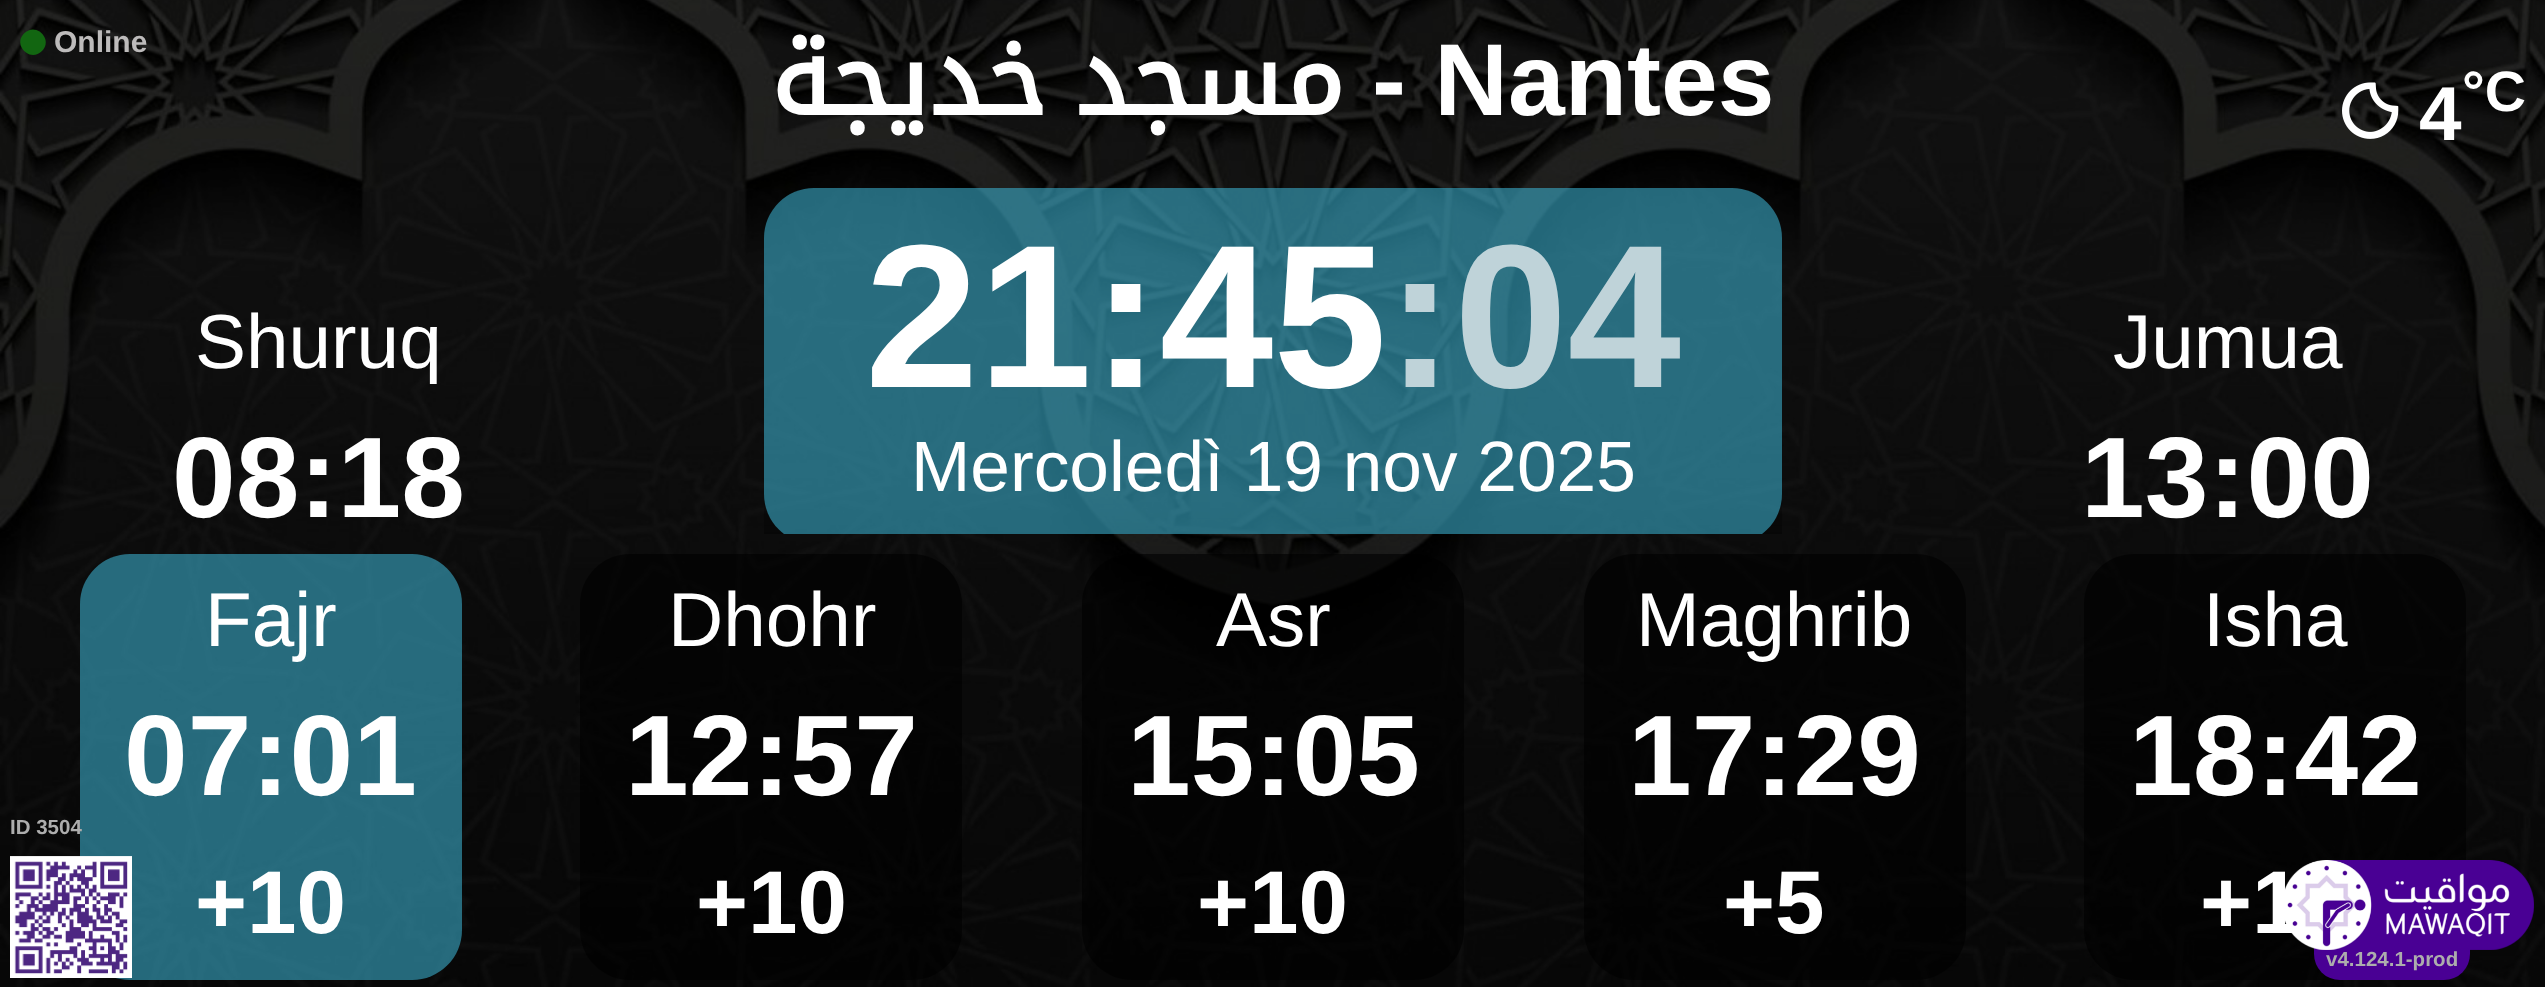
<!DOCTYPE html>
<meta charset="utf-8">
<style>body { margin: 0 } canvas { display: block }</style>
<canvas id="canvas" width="2545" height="987"></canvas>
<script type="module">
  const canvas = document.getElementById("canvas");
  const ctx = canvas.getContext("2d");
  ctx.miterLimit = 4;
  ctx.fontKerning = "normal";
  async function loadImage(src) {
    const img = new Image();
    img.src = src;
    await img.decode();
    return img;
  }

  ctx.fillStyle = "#ffffff";
  ctx.fillRect(0, 0, 2545, 987);
  ctx.drawImage(await loadImage("img1.png"), 0, 0, 2545, 987);
  ctx.fillStyle = "#126611";
  ctx.beginPath();
  ctx.moveTo(24, 33.5);
  ctx.bezierCurveTo(36, 21.5, 53.5, 39.5, 42, 51);
  ctx.bezierCurveTo(30, 63, 12.5, 45, 24, 33.5);
  ctx.closePath();
  ctx.fill();
  ctx.font = "bold 30px Liberation Sans";
  ctx.fillStyle = "#bdbbbb";
  ctx.fillText("Online", 54, 52);
  ctx.wordSpacing = "-6px";
  ctx.direction = "rtl";
  ctx.font = "bold 102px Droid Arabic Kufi";
  ctx.fillStyle = "#ffffff";
  ctx.fillText("مسجد خديجة", 1344, 115);
  ctx.wordSpacing = "0px";
  ctx.direction = "ltr";
  ctx.font = "bold 102px Liberation Sans";
  ctx.fillText("- Nantes", 1372, 115);
  ctx.drawImage(await loadImage("img2.png"), 2342, 82, 57, 57);
  ctx.font = "bold 76.5px Liberation Sans";
  ctx.fillText("4", 2419, 140);
  ctx.font = "bold 57px Liberation Sans";
  ctx.fillText("°C", 2462, 111);
  ctx.font = "76.5px Liberation Sans";
  ctx.fillText("Shuruq", 195, 368);
  ctx.font = "bold 114.5px Liberation Sans";
  ctx.fillText("08:18", 172, 517);
  ctx.save();
  ctx.beginPath();
  ctx.rect(0, 0, 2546, 534);
  ctx.clip();
  ctx.fillStyle = "rgba(59, 171, 201, 0.6)";
  ctx.beginPath();
  ctx.roundRect(764, 188, 1018, 356, 50);
  ctx.fill();
  ctx.restore();
  ctx.font = "bold 204px Liberation Sans";
  ctx.fillText("21:45", 865, 387);
  ctx.fillStyle = "#bfd3d9";
  ctx.fillText(":04", 1386, 387);
  ctx.font = "71.25px Liberation Sans";
  ctx.fillStyle = "#ffffff";
  ctx.fillText("Mercoledì 19 nov 2025", 911, 491);
  ctx.font = "76.5px Liberation Sans";
  ctx.fillText("Jumua", 2113, 368);
  ctx.font = "bold 114.5px Liberation Sans";
  ctx.fillText("13:00", 2081, 517);
  ctx.fillStyle = "rgba(59, 171, 201, 0.6)";
  ctx.beginPath();
  ctx.roundRect(80, 554, 382, 426, 50);
  ctx.fill();
  ctx.font = "76.5px Liberation Sans";
  ctx.fillStyle = "#ffffff";
  ctx.fillText("Fajr", 205, 646);
  ctx.font = "bold 114.5px Liberation Sans";
  ctx.fillText("07:01", 124, 795);
  ctx.font = "bold 89px Liberation Sans";
  ctx.fillText("+10", 195, 933);
  ctx.fillStyle = "rgba(0, 0, 0, 0.6)";
  ctx.beginPath();
  ctx.roundRect(580, 554, 382, 426, 50);
  ctx.fill();
  ctx.font = "76.5px Liberation Sans";
  ctx.fillStyle = "#ffffff";
  ctx.fillText("Dhohr", 668, 646);
  ctx.font = "bold 114.5px Liberation Sans";
  ctx.fillText("12:57", 625, 795);
  ctx.font = "bold 89px Liberation Sans";
  ctx.fillText("+10", 696, 933);
  ctx.fillStyle = "rgba(0, 0, 0, 0.6)";
  ctx.beginPath();
  ctx.roundRect(1082, 554, 382, 426, 50);
  ctx.fill();
  ctx.font = "76.5px Liberation Sans";
  ctx.fillStyle = "#ffffff";
  ctx.fillText("Asr", 1216, 646);
  ctx.font = "bold 114.5px Liberation Sans";
  ctx.fillText("15:05", 1127, 795);
  ctx.font = "bold 89px Liberation Sans";
  ctx.fillText("+10", 1197, 933);
  ctx.fillStyle = "rgba(0, 0, 0, 0.6)";
  ctx.beginPath();
  ctx.roundRect(1584, 554, 382, 426, 50);
  ctx.fill();
  ctx.font = "76.5px Liberation Sans";
  ctx.fillStyle = "#ffffff";
  ctx.fillText("Maghrib", 1636, 646);
  ctx.font = "bold 114.5px Liberation Sans";
  ctx.fillText("17:29", 1628, 795);
  ctx.font = "bold 89px Liberation Sans";
  ctx.fillText("+5", 1723, 933);
  ctx.fillStyle = "rgba(0, 0, 0, 0.6)";
  ctx.beginPath();
  ctx.roundRect(2084, 554, 382, 426, 50);
  ctx.fill();
  ctx.font = "76.5px Liberation Sans";
  ctx.fillStyle = "#ffffff";
  ctx.fillText("Isha", 2203, 646);
  ctx.font = "bold 114.5px Liberation Sans";
  ctx.fillText("18:42", 2129, 795);
  ctx.font = "bold 89px Liberation Sans";
  ctx.fillText("+1", 2200, 933);
  ctx.font = "bold 20.5px Liberation Sans";
  ctx.fillStyle = "#adadad";
  ctx.fillText("ID 3504", 10, 834);
  ctx.drawImage(await loadImage("img3.png"), 10, 856, 122, 122);
  ctx.fillStyle = "#490094";
  ctx.beginPath();
  ctx.roundRect(2314, 942, 156, 38, [0, 0, 26, 26]);
  ctx.fill();
  ctx.drawImage(await loadImage("img4.png"), 2284, 860, 250, 90);
  ctx.fillStyle = "#adadad";
  ctx.fillText("v4.124.1-prod", 2326, 966);
</script>
